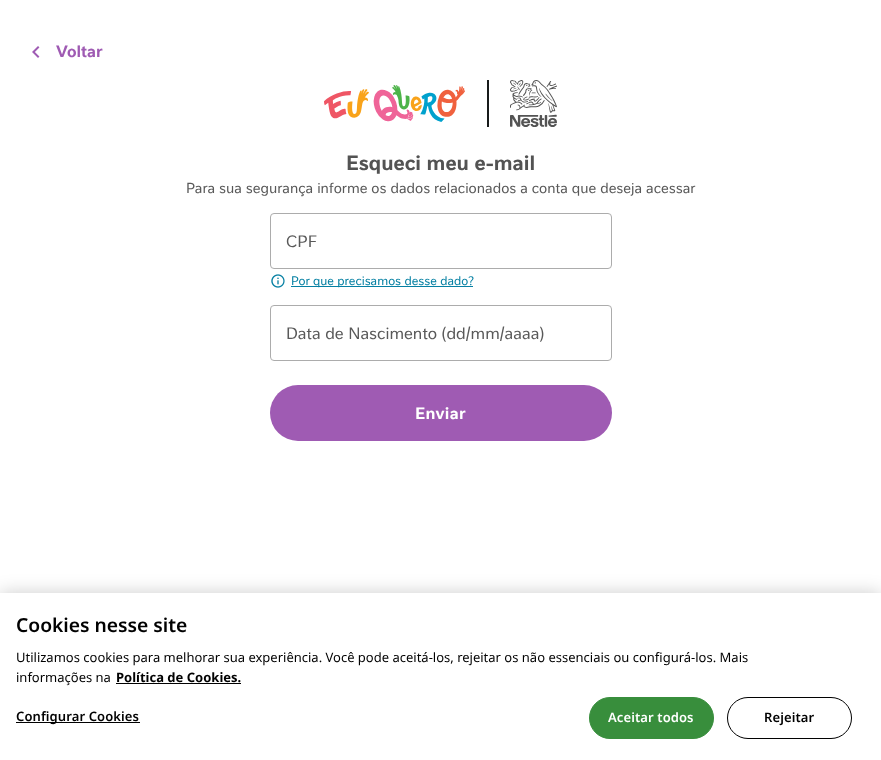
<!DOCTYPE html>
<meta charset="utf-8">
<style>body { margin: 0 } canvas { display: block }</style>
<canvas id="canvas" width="881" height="760"></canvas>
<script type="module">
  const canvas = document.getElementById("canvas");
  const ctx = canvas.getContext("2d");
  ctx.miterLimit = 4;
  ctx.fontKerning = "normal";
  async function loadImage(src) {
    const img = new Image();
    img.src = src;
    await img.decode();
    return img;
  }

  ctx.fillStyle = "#ffffff";
  ctx.fillRect(0, 0, 881, 760);
  ctx.drawImage(await loadImage("img1.png"), 32, 46, 8, 12);
  ctx.font = "bold 16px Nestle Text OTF";
  ctx.fillStyle = "#9f5bb3";
  ctx.fillText("Voltar", 56, 57);
  ctx.drawImage(await loadImage("img2.png"), 324, 80, 233, 47);
  ctx.font = "bold 20px Nestle Text OTF";
  ctx.fillStyle = "#535353";
  ctx.fillText("Esqueci meu e-mail", 346, 170);
  ctx.font = "14px Nestle Text OTF";
  ctx.fillStyle = "#595959";
  ctx.fillText("Para sua segurança informe os dados relacionados a conta que deseja acessar", 186, 193);
  ctx.beginPath();
  ctx.roundRect(270.5, 213.5, 341, 55, 3.5);
  ctx.strokeStyle = "#acacac";
  ctx.stroke();
  ctx.font = "16px Nestle Text OTF";
  ctx.fillText("CPF", 286, 247);
  ctx.drawImage(await loadImage("img3.png"), 271, 274, 14, 14);
  ctx.fillStyle = "#0680a3";
  ctx.fillRect(291, 286, 182, 1);
  ctx.font = "12px Nestle Text OTF";
  ctx.fillText("Por que precisamos desse dado?", 291, 285);
  ctx.beginPath();
  ctx.roundRect(270.5, 305.5, 341, 55, 3.5);
  ctx.stroke();
  ctx.font = "16px Nestle Text OTF";
  ctx.fillStyle = "#595959";
  ctx.fillText("Data de Nascimento (dd/mm/aaaa)", 286, 339);
  ctx.fillStyle = "#9f5bb3";
  ctx.beginPath();
  ctx.roundRect(270, 385, 342, 56, 28);
  ctx.fill();
  ctx.letterSpacing = "0.25px";
  ctx.font = "bold 16px Nestle Text OTF";
  ctx.fillStyle = "#ffffff";
  ctx.fillText("Enviar", 415, 419);
  ctx.fillStyle = "rgba(0, 0, 0, 0.2)";
  ctx.filter = "blur(9px)";
  ctx.beginPath();
  ctx.rect(0, 593, 881, 167);
  ctx.fill();
  ctx.filter = "none";
  ctx.fillStyle = "#ffffff";
  ctx.fillRect(0, 593, 881, 167);
  ctx.letterSpacing = "0px";
  ctx.font = "600 19.25px Noto Sans";
  ctx.fillStyle = "#010101";
  ctx.fillText("Cookies nesse site", 16, 632);
  ctx.font = "13px Noto Sans";
  ctx.fillText("Utilizamos cookies para melhorar sua experiência. Você pode aceitá-los, rejeitar os não essenciais ou configurá-los. Mais", 16, 662);
  ctx.fillText("informações na", 16, 682);
  ctx.font = "bold 13px Noto Sans";
  ctx.fillText("Política de Cookies.", 116, 682);
  ctx.fillRect(116, 683, 125, 1);
  ctx.fillRect(16, 722, 124, 1);
  ctx.letterSpacing = "0.1px";
  ctx.font = "600 13px Noto Sans";
  ctx.fillText("Configurar Cookies", 16, 721);
  ctx.fillStyle = "#388e3c";
  ctx.beginPath();
  ctx.roundRect(589.5, 697.5, 124, 41, 20.5);
  ctx.fill();
  ctx.strokeStyle = "#388e3c";
  ctx.stroke();
  ctx.fillStyle = "#ffffff";
  ctx.fillText("Aceitar todos", 608, 722);
  ctx.beginPath();
  ctx.roundRect(727.5, 697.5, 124, 41, 20.5);
  ctx.strokeStyle = "#010101";
  ctx.stroke();
  ctx.fillStyle = "#010101";
  ctx.fillText("Rejeitar", 764, 722);
</script>
